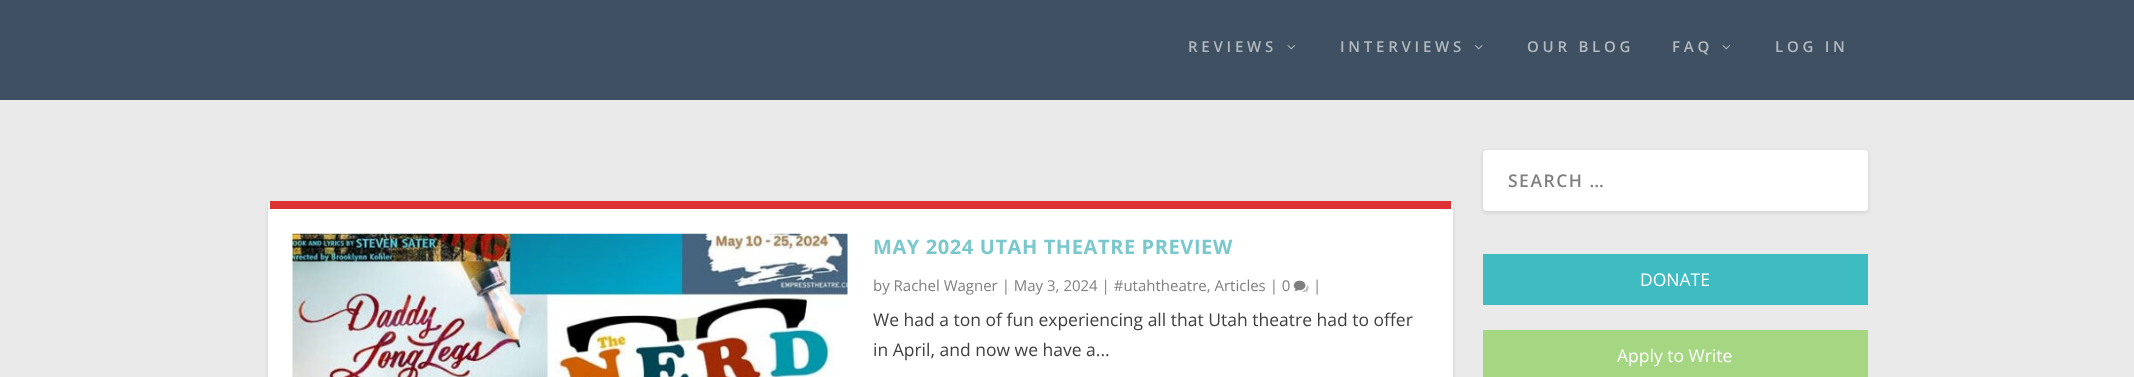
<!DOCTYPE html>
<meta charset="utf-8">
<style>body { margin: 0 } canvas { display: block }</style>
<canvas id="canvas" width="2134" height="377"></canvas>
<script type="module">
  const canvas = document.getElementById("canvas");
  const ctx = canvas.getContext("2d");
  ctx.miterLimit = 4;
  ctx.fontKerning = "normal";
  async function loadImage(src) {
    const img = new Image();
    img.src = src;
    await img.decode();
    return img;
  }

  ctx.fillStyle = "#eaeaea";
  ctx.fillRect(0, 0, 2134, 377);
  ctx.fillStyle = "#3e5062";
  ctx.fillRect(0, 0, 2134, 100);
  ctx.letterSpacing = "3.75px";
  ctx.font = "600 15px Open Sans";
  ctx.fillStyle = "#b2b9c0";
  ctx.fillText("REVIEWS", 1188, 52);
  ctx.drawImage(await loadImage("img1.png"), 1287, 45, 8, 5);
  ctx.fillText("INTERVIEWS", 1340, 52);
  ctx.drawImage(await loadImage("img2.png"), 1475, 45, 8, 5);
  ctx.fillText("OUR BLOG", 1527, 52);
  ctx.fillText("FAQ", 1672, 52);
  ctx.drawImage(await loadImage("img1.png"), 1722, 45, 8, 5);
  ctx.fillText("LOG IN", 1775, 52);
  ctx.fillStyle = "rgba(0, 0, 0, 0.1)";
  ctx.filter = "blur(2px)";
  ctx.beginPath();
  ctx.roundRect(268, 203, 1185, 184, 4);
  ctx.fill();
  ctx.filter = "none";
  ctx.fillStyle = "#ffffff";
  ctx.beginPath();
  ctx.roundRect(268, 201, 1185, 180, 4);
  ctx.fill();
  ctx.fillStyle = "#dd3333";
  ctx.fillRect(270, 201, 1181, 8);
  ctx.drawImage(await loadImage("img3.png"), 292, 233, 556, 144);
  ctx.letterSpacing = "0.6px";
  ctx.font = "bold 20px Open Sans";
  ctx.fillStyle = "#7ac8cc";
  ctx.fillText("MAY 2024 UTAH THEATRE PREVIEW", 873, 254);
  ctx.letterSpacing = "0px";
  ctx.font = "15px Open Sans";
  ctx.fillStyle = "#808080";
  ctx.fillText("by Rachel Wagner | May 3, 2024 | #utahtheatre, Articles | 0", 873, 291);
  ctx.drawImage(await loadImage("img4.png"), 1293, 280, 16, 12);
  ctx.fillText("|", 1313, 291);
  ctx.font = "17.5px Open Sans";
  ctx.fillStyle = "#404040";
  ctx.fillText("We had a ton of fun experiencing all that Utah theatre had to offer", 873, 326);
  ctx.fillText("in April, and now we have a...", 873, 356);
  ctx.fillStyle = "rgba(0, 0, 0, 0.1)";
  ctx.filter = "blur(2px)";
  ctx.beginPath();
  ctx.roundRect(1483, 151, 385, 62, 4);
  ctx.fill();
  ctx.filter = "none";
  ctx.fillStyle = "#ffffff";
  ctx.beginPath();
  ctx.roundRect(1483, 150, 385, 61, 4);
  ctx.fill();
  ctx.letterSpacing = "1.5px";
  ctx.font = "600 17.5px Open Sans";
  ctx.fillStyle = "#808080";
  ctx.fillText("SEARCH …", 1508, 187);
  ctx.fillStyle = "#3ebcc2";
  ctx.fillRect(1483, 254, 385, 51);
  ctx.letterSpacing = "0px";
  ctx.font = "17.5px Open Sans";
  ctx.fillStyle = "#ffffff";
  ctx.fillText("DONATE", 1640, 286);
  ctx.fillStyle = "#a5d682";
  ctx.fillRect(1483, 330, 385, 47);
  ctx.fillStyle = "#ffffff";
  ctx.fillText("Apply to Write", 1617, 362);
</script>
